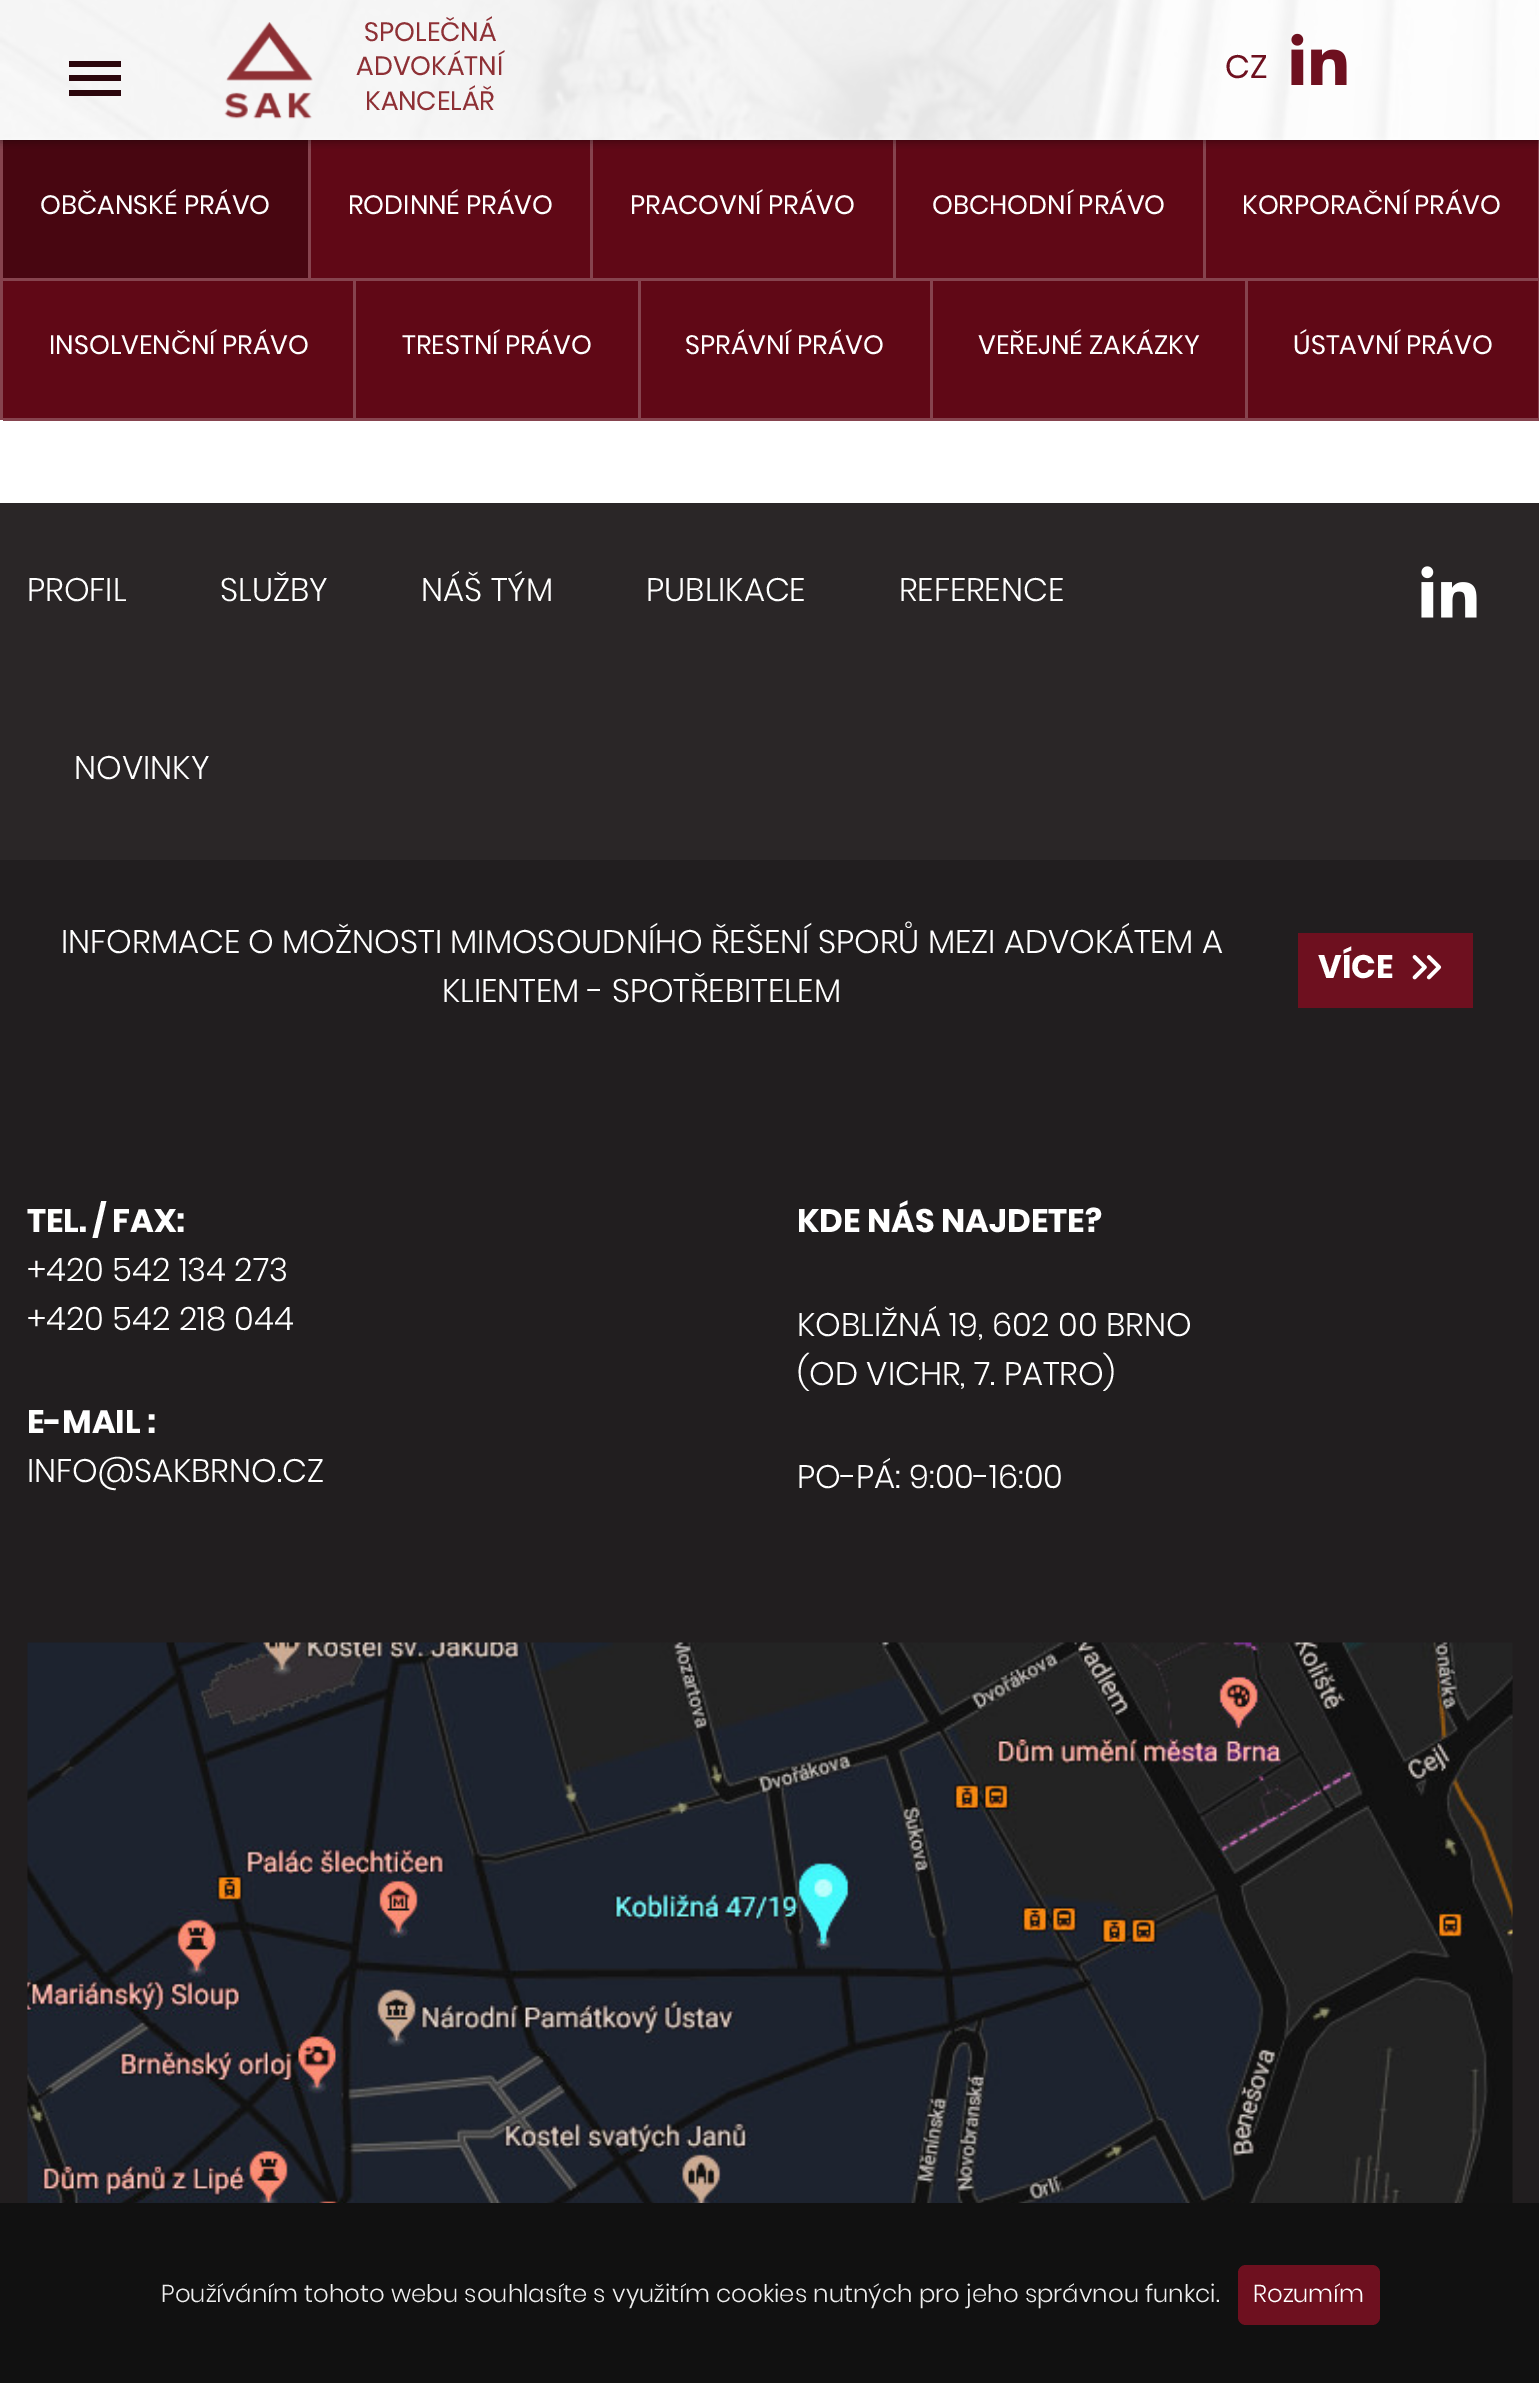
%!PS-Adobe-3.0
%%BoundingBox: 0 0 1539 2383
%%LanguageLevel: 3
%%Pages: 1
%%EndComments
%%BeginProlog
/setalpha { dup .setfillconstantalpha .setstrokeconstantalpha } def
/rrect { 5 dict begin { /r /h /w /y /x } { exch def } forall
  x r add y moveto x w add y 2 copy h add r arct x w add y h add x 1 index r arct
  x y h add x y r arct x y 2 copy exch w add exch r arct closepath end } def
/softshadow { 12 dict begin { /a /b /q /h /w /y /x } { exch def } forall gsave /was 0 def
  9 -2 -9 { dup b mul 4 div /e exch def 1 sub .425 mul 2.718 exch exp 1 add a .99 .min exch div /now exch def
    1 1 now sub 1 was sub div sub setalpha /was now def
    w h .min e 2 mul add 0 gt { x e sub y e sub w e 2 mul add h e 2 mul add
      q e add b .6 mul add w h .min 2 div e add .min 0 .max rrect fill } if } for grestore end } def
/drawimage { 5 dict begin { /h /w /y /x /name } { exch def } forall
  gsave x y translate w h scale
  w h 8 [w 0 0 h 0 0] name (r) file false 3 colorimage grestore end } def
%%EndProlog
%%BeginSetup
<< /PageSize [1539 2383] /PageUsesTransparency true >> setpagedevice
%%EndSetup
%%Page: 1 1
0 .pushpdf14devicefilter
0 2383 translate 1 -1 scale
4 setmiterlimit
1 setgray
0 0 1539 2383 rectfill
(images/1.raw) 0 0 1539 140 drawimage
0.376 0.031 0.086 setrgbcolor
3 140 1535 278 rectfill
0.525 0.263 0.306 setrgbcolor
0 140 3 280 rectfill
0.282 0.024 0.067 setrgbcolor
3 140 305 138 rectfill
0.525 0.263 0.306 setrgbcolor
308 140 3 140 rectfill
590 140 3 140 rectfill
893 140 3 140 rectfill
1203 140 3 140 rectfill
1538 140 1 140 rectfill
gsave
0 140 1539 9 rectclip
0 setgray
0 0 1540 140 0 5 0.5 softshadow
grestore
0.169 0.024 0.047 setrgbcolor
newpath 69 61 moveto 121 61 lineto 121 67 lineto 69 67 lineto closepath 69 81 moveto 69 75 lineto 121 75 lineto 121 81 lineto closepath 69 96 moveto 69 90 lineto 121 90 lineto 121 96 lineto closepath fill
(images/2.raw) 224 22 89 97 drawimage
(images/3.raw) 1291 33 56 52 drawimage
0.525 0.263 0.306 setrgbcolor
3 278 307 3 rectfill
310 278 283 3 rectfill
593 278 302 3 rectfill
895 278 310 3 rectfill
1205 278 334 3 rectfill
353 280 3 140 rectfill
3 418 352 3 rectfill
638 280 3 140 rectfill
355 418 285 3 rectfill
930 280 3 140 rectfill
640 418 293 3 rectfill
1245 280 3 140 rectfill
933 418 315 3 rectfill
1538 280 1 140 rectfill
1248 418 291 3 rectfill
0.129 0.118 0.122 setrgbcolor
0 860 1539 1343 rectfill
0.165 0.149 0.153 setrgbcolor
0 503 1539 357 rectfill
(images/4.raw) 1421 566 56 52 drawimage
0.431 0.063 0.122 setrgbcolor
1298 933 175 75 rectfill
(images/5.raw) 1412 955 30 25 drawimage
(images/6.raw) 27 1642 1486 561 drawimage
0.067 setgray
0 2203 1539 180 rectfill
0.431 0.063 0.122 setrgbcolor
1238 2265 142 60 8 rrect fill
/Poppins-Regular [26.5 0 0 -26.5 0 0] selectfont
0.557 0.188 0.208 setrgbcolor
364 41 moveto (SPOLEČNÁ) show
356 75 moveto (ADVOKÁTNÍ) show
365 110 moveto (KANCELÁŘ) show
/Poppins-Regular [32.5 0 0 -32.5 0 0] selectfont
0.431 0.063 0.122 setrgbcolor
1225 78 moveto (CZ) show
/Poppins-Regular [26.5 0 0 -26.5 0 0] selectfont
1 setgray
40 214 moveto (OBČANSKÉ PRÁVO) show
348 214 moveto (RODINNÉ PRÁVO) show
630 214 moveto (PRACOVNÍ PRÁVO) show
932 214 moveto (OBCHODNÍ PRÁVO) show
1242 214 moveto (KORPORAČNÍ PRÁVO) show
49 354 moveto (INSOLVENČNÍ PRÁVO) show
402 354 moveto (TRESTNÍ PRÁVO) show
685 354 moveto (SPRÁVNÍ PRÁVO) show
978 354 moveto (VEŘEJNÉ ZAKÁZKY) show
1293 354 moveto (ÚSTAVNÍ PRÁVO) show
/Poppins-Light [32.5 0 0 -32.5 0 0] selectfont
27 601 moveto (PROFIL) show
220 601 moveto (SLUŽBY) show
421 601 moveto (NÁŠ TÝM) show
646 601 moveto (PUBLIKACE) show
899 601 moveto (REFERENCE) show
74 779 moveto (NOVINKY) show
61 953 moveto (INFORMACE O MOŽNOSTI MIMOSOUDNÍHO ŘEŠENÍ SPORŮ MEZI ADVOKÁTEM A) show
/Poppins-Bold [32.5 0 0 -32.5 0 0] selectfont
1318 978 moveto (VÍCE) show
/Poppins-Light [32.5 0 0 -32.5 0 0] selectfont
442 1002 moveto (KLIENTEM - SPOTŘEBITELEM) show
/Poppins-Bold [32.5 0 0 -32.5 0 0] selectfont
27 1232 moveto (TEL. / FAX:) show
/Poppins-Light [32.5 0 0 -32.5 0 0] selectfont
27 1281 moveto (+420 542 134 273) show
27 1330 moveto (+420 542 218 044) show
/Poppins-Bold [32.5 0 0 -32.5 0 0] selectfont
27 1433 moveto (E-MAIL :) show
/Poppins-Light [32.5 0 0 -32.5 0 0] selectfont
27 1482 moveto (INFO@SAKBRNO.CZ) show
/Poppins-Bold [32.5 0 0 -32.5 0 0] selectfont
797 1232 moveto (KDE NÁS NAJDETE?) show
/Poppins-Light [32.5 0 0 -32.5 0 0] selectfont
797 1336 moveto (KOBLIŽNÁ 19, 602 00 BRNO) show
797 1385 moveto (\(OD VICHR, 7. PATRO\)) show
797 1488 moveto (PO-PÁ: 9:00-16:00) show
/Poppins-Light [24.4 0 0 -24.4 0 0] selectfont
0.933 setgray
161 2302 moveto (Používáním tohoto webu souhlasíte s využitím cookies nutných pro jeho správnou funkci.) show
1 setgray
1253 2302 moveto (Rozumím) show
.poppdf14devicefilter showpage
%%EOF
